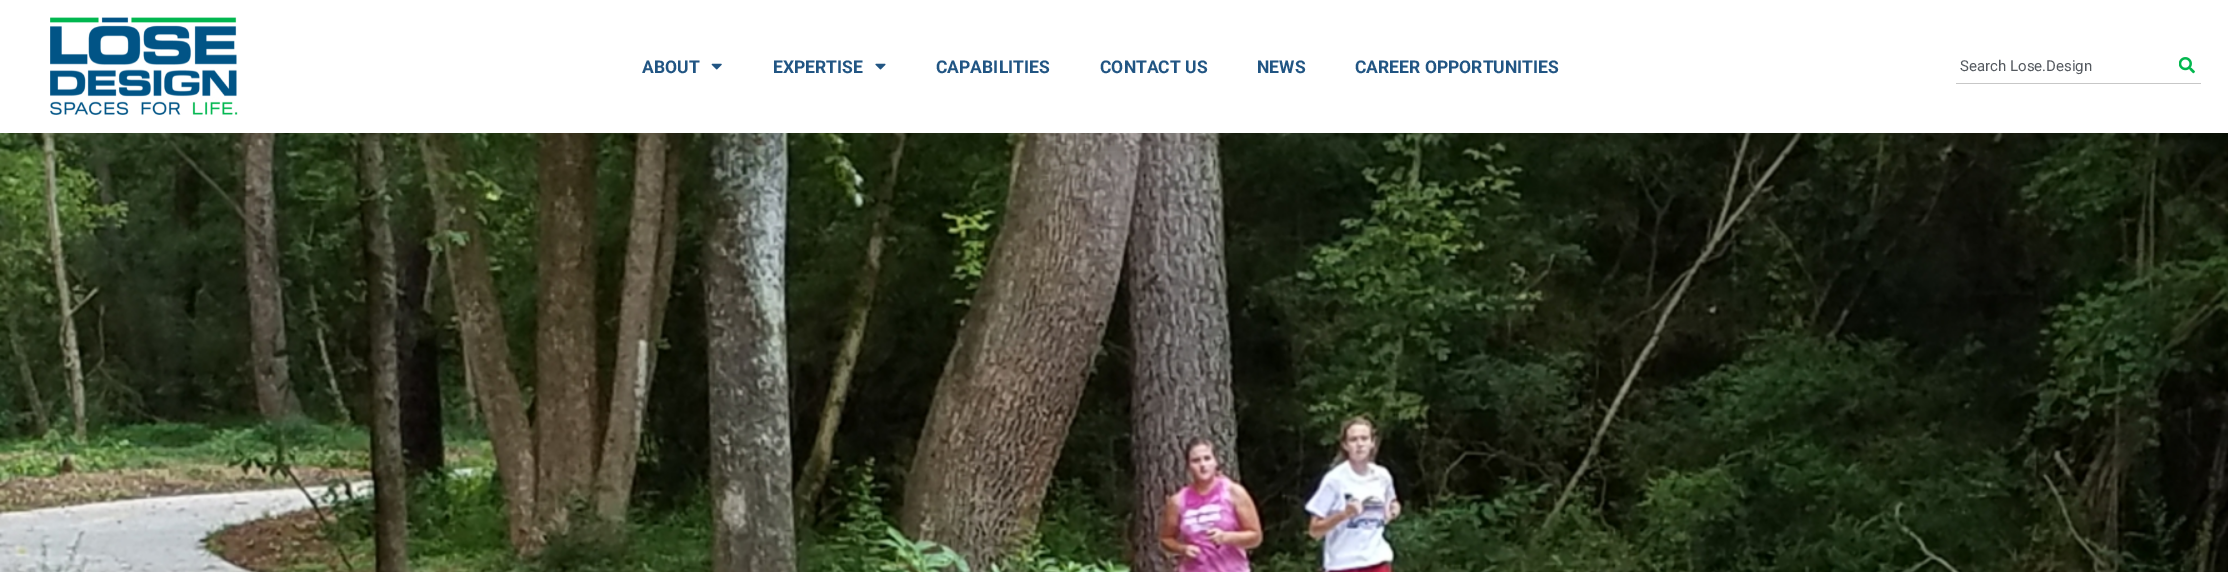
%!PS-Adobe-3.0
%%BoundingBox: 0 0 2228 572
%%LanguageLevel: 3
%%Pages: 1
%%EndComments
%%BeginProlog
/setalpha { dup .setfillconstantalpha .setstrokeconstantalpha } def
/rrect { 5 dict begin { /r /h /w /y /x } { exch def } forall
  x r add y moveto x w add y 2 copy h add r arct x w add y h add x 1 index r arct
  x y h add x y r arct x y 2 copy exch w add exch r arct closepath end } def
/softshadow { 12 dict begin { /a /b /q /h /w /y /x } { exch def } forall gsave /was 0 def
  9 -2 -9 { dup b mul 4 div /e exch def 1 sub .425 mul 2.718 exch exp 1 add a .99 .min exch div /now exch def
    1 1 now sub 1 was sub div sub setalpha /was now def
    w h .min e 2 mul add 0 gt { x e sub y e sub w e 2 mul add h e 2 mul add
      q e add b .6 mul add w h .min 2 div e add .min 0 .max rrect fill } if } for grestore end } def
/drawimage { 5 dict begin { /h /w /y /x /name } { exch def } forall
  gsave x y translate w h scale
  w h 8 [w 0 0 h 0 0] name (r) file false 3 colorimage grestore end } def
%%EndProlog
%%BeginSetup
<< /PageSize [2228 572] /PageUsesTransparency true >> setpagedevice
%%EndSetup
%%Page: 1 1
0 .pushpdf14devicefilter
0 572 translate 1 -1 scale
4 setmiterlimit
1 setgray
0 0 2228 572 rectfill
(images/5.raw) 0 133 2228 439 drawimage
0 setgray
0 0 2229 133 0 24 0.1 softshadow
1 setgray
0 0 2228 133 rectfill
(images/1.raw) 50 17 188 98 drawimage
(images/2.raw) 711 63 11 7 drawimage
(images/3.raw) 875 63 11 7 drawimage
0.78 setgray
1956 83 245 1 rectfill
(images/4.raw) 2179 57 16 17 drawimage
/Roboto-Bold [17.5 0 0 -17.5 0 0] selectfont
0.129 0.333 0.514 setrgbcolor
642 73 moveto (ABOUT) show
773 73 moveto (EXPERTISE) show
936 73 moveto (CAPABILITIES) show
1100 73 moveto (CONTACT US) show
1257 73 moveto (NEWS) show
1355 73 moveto (CAREER OPPORTUNITIES) show
/Roboto-Regular [15 0 0 -15 0 0] selectfont
0.329 0.349 0.373 setrgbcolor
1960 71 moveto (Search Lose.Design) show
.poppdf14devicefilter showpage
%%EOF
